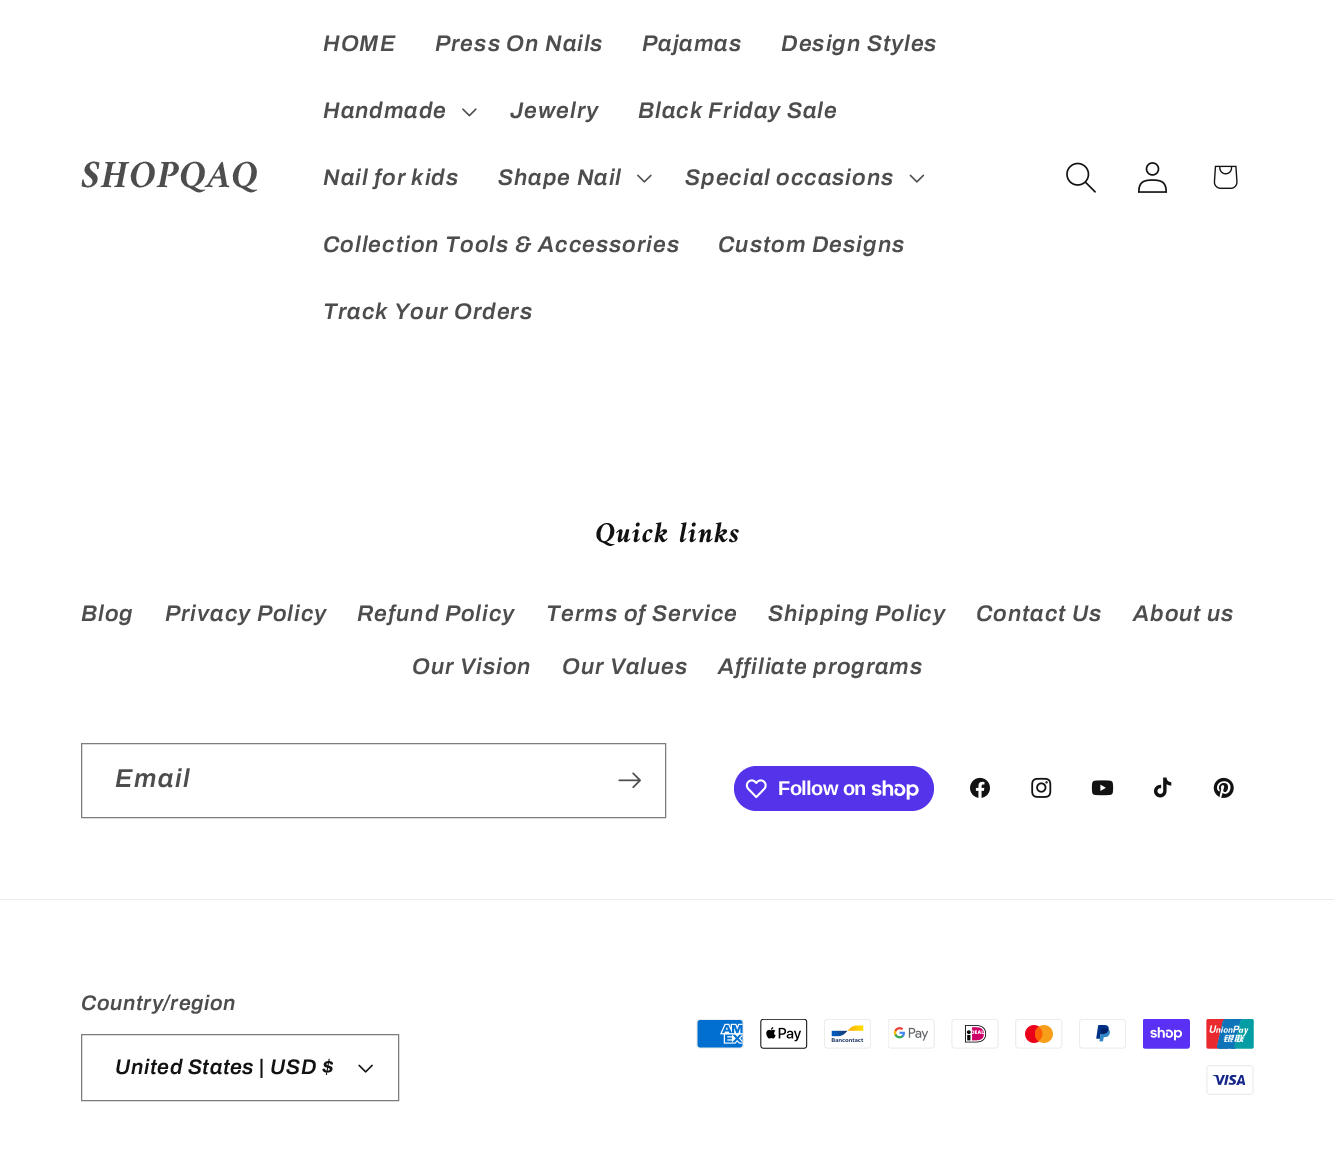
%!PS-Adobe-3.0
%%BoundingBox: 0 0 1334 1151
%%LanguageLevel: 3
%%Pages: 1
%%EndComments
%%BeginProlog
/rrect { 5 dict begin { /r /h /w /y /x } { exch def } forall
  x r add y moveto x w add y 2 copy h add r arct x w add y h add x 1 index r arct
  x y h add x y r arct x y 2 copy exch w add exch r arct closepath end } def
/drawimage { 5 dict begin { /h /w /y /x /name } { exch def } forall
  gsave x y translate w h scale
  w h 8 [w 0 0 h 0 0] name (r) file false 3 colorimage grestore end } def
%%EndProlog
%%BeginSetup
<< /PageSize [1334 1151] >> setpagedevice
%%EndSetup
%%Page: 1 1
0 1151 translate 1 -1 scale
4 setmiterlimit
1 setgray
0 0 1334 1151 rectfill
(images/1.raw) 462 108 15 9 drawimage
(images/2.raw) 637 174 15 9 drawimage
(images/3.raw) 909 174 16 9 drawimage
(images/4.raw) 1066 162 30 31 drawimage
(images/5.raw) 1137 162 31 31 drawimage
(images/6.raw) 1213 165 25 24 drawimage
0.49 setgray
81.5 743.5 584 74 rectstroke
(images/7.raw) 618 772 23 17 drawimage
0.329 0.2 0.922 setrgbcolor
734 766 200 45 22.5 rrect fill
(images/8.raw) 745 779 22 20 drawimage
(images/9.raw) 871 780 48 20 drawimage
(images/10.raw) 970 777 20 21 drawimage
(images/11.raw) 1031 777 21 21 drawimage
(images/12.raw) 1091 780 23 16 drawimage
(images/13.raw) 1153 777 19 21 drawimage
(images/14.raw) 1213 777 21 21 drawimage
0.925 setgray
0 899 1334 1 rectfill
(images/15.raw) 358 1064 15 9 drawimage
0.49 setgray
81.5 1034.5 317 66 rectstroke
(images/16.raw) 696 1019 48 30 drawimage
(images/17.raw) 760 1019 48 30 drawimage
(images/18.raw) 824 1019 47 30 drawimage
(images/19.raw) 888 1019 47 30 drawimage
(images/20.raw) 951 1019 48 30 drawimage
(images/21.raw) 1015 1019 48 30 drawimage
(images/22.raw) 1079 1019 47 30 drawimage
(images/23.raw) 1143 1019 47 30 drawimage
(images/24.raw) 1206 1019 48 30 drawimage
(images/25.raw) 1206 1065 48 30 drawimage
/Amiri-BoldItalic [39 0 0 -39 0 0] selectfont
0.302 setgray
81 187 moveto 1 0 (SHOPQAQ) ashow
/Archivo-SemiBoldItalic [22.75 0 0 -22.75 0 0] selectfont
323 51 moveto 1 0 (HOME) ashow
435 51 moveto 1 0 (Press On Nails) ashow
642 51 moveto 1 0 (Pajamas) ashow
781 51 moveto 1 0 (Design Styles) ashow
323 118 moveto 1 0 (Handmade) ashow
510 118 moveto 1 0 (Jewelry) ashow
638 118 moveto 1 0 (Black Friday Sale) ashow
323 185 moveto 1 0 (Nail for kids) ashow
498 185 moveto 1 0 (Shape Nail) ashow
685 185 moveto 1 0 (Special occasions) ashow
323 252 moveto 1 0 (Collection Tools & Accessories) ashow
718 252 moveto 1 0 (Custom Designs) ashow
323 319 moveto 1 0 (Track Your Orders) ashow
/Amiri-BoldItalic [29.25 0 0 -29.25 0 0] selectfont
0.071 setgray
595 542 moveto 1 0 (Quick links) ashow
/Archivo-SemiBoldItalic [22.75 0 0 -22.75 0 0] selectfont
0.302 setgray
81 621 moveto 1 0 (Blog) ashow
165 621 moveto 1 0 (Privacy Policy) ashow
357 621 moveto 1 0 (Refund Policy) ashow
546 621 moveto 1 0 (Terms of Service) ashow
768 621 moveto 1 0 (Shipping Policy) ashow
976 621 moveto 1 0 (Contact Us) ashow
1133 621 moveto 1 0 (About us) ashow
412 674 moveto 1 0 (Our Vision) ashow
562 674 moveto 1 0 (Our Values) ashow
718 674 moveto 1 0 (Affiliate programs) ashow
/Archivo-SemiBoldItalic [26 0 0 -26 0 0] selectfont
115 787 moveto 1.5 0 (Email) ashow
/LiberationSans-Bold [20 0 0 -20 0 0] selectfont
1 setgray
778 795 moveto -0.6 0 (Follow on) ashow
/Archivo-SemiBoldItalic [21.1 0 0 -21.1 0 0] selectfont
0.302 setgray
81 1010 moveto 0.65 0 (Country/region) ashow
0.071 setgray
115 1074 moveto 0.65 0 (United States | USD $) ashow
showpage
%%EOF
